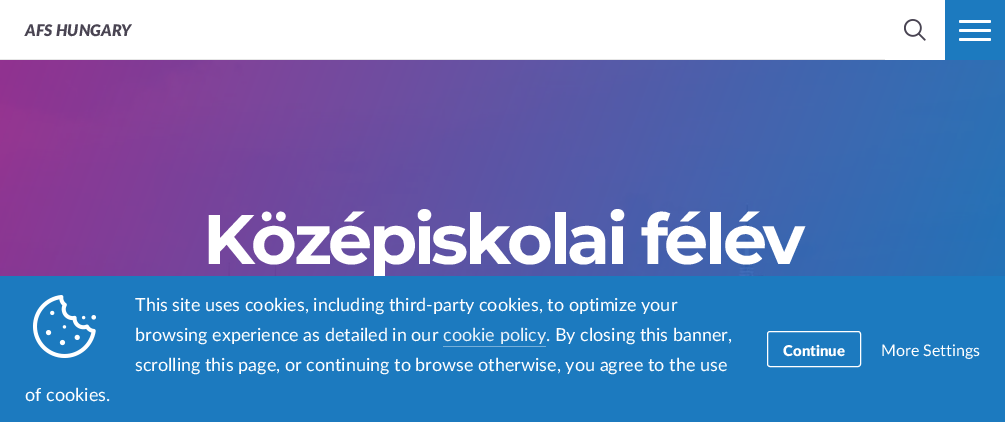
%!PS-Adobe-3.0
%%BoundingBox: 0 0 1005 422
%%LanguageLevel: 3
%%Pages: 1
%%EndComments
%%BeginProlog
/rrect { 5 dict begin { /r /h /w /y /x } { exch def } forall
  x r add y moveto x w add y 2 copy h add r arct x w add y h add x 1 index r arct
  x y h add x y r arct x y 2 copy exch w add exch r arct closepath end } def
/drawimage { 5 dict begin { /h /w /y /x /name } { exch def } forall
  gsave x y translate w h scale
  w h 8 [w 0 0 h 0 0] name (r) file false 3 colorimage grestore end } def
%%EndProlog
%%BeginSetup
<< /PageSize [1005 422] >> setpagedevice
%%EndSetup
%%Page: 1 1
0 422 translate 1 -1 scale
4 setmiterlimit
1 setgray
0 0 1005 422 rectfill
(images/1.raw) 904 19 22 22 drawimage
0.11 0.478 0.749 setrgbcolor
945 0 60 60 rectfill
1 setgray
959 29 32 3 1.5 rrect fill
959 20 32 3 1.5 rrect fill
959 38 32 3 1.5 rrect fill
0.902 setgray
0 59 885 1 rectfill
(images/2.raw) 0 60 1005 216 drawimage
/Lato-BlackItalic [16 0 0 -16 0 0] selectfont
0.286 0.267 0.322 setrgbcolor
25 36 moveto (AFS HUNGARY) show
/Montserrat-Thin [70 0 0 -70 0 0] selectfont
1 setgray
203 264 moveto -3.5 0 (Középiskolai félév) ashow
0.11 0.478 0.749 setrgbcolor
0 276 1005 146 rectfill
(images/3.raw) 33 295 63 63 drawimage
/Lato-Regular [18 0 0 -18 0 0] selectfont
1 setgray
135 311 moveto (This site uses cookies, including third-party cookies, to optimize your) show
135 341 moveto (browsing experience as detailed in our) show
0.91 0.949 0.976 setrgbcolor
443 341 moveto (cookie policy) show
0.467 0.686 0.851 setrgbcolor
443 346 103 1 rectfill
1 setgray
546 341 moveto (. By closing this banner,) show
135 371 moveto (scrolling this page, or continuing to browse otherwise, you agree to the use) show
25 401 moveto (of cookies.) show
767.5 331.5 93 35 2.5 rrect stroke
/Lato-Black [15 0 0 -15 0 0] selectfont
783 356 moveto (Continue) show
/Lato-Regular [16 0 0 -16 0 0] selectfont
881 356 moveto (More Settings) show
showpage
%%EOF
